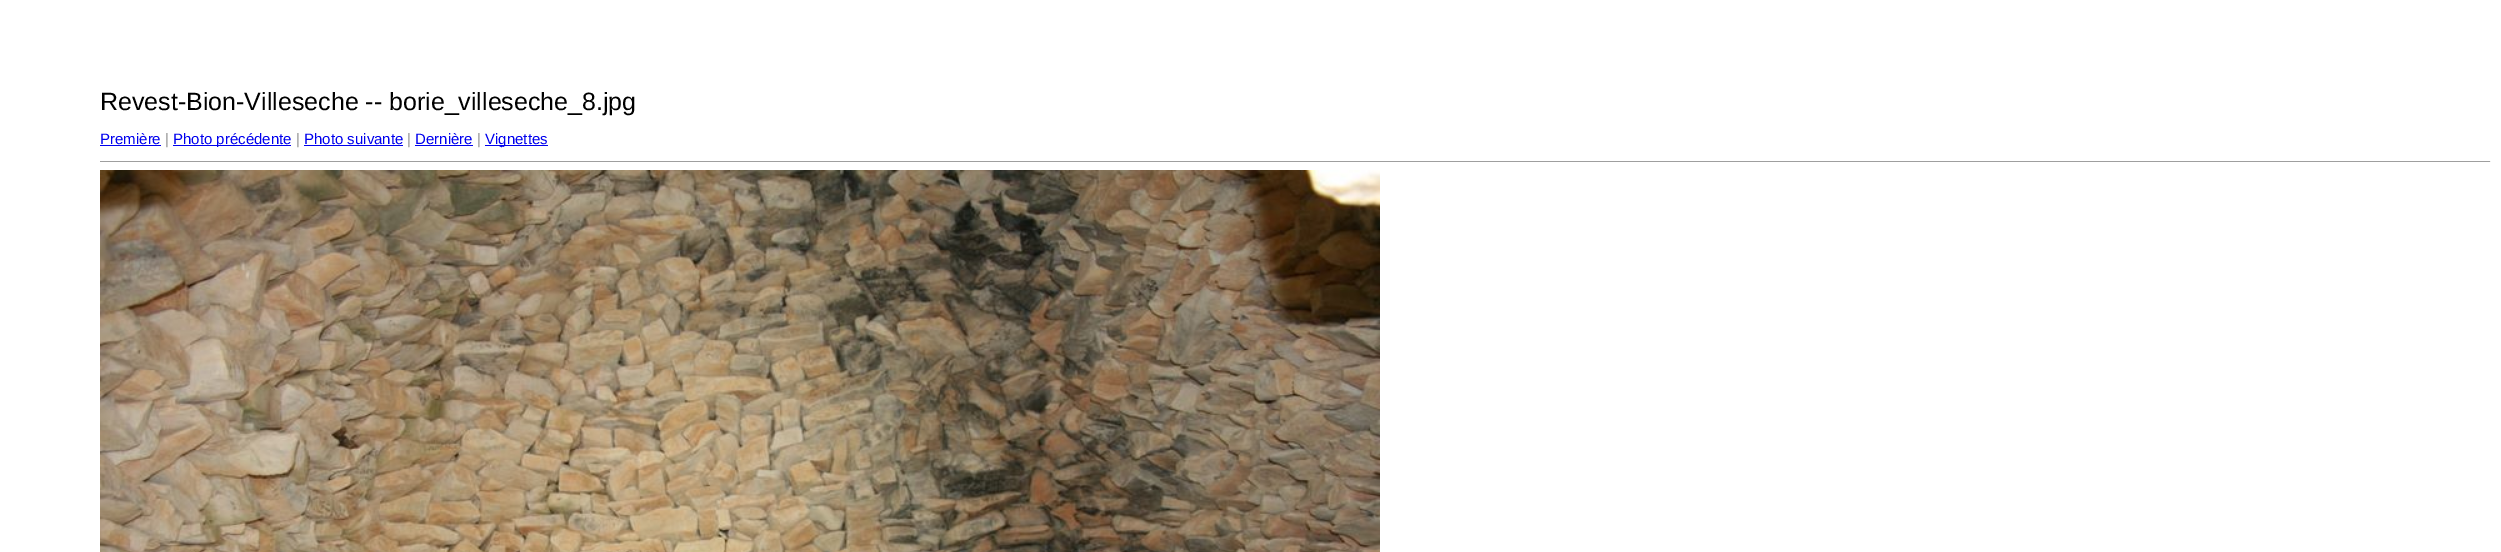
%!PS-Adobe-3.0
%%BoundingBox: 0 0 2501 552
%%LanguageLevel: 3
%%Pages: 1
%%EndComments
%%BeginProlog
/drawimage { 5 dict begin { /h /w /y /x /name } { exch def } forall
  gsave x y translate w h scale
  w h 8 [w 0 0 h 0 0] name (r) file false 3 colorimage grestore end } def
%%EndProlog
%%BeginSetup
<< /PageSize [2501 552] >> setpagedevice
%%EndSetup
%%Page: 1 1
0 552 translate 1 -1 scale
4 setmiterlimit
1 setgray
0 0 2501 552 rectfill
0 0 0.933 setrgbcolor
100 145 61 1 rectfill
173 145 118 1 rectfill
304 145 99 1 rectfill
415 145 58 1 rectfill
485 145 63 1 rectfill
0.624 setgray
100 161 2391 1 rectfill
0.933 setgray
2490 161 1 1 rectfill
(images/1.raw) 100 170 1280 382 drawimage
/LiberationSans-Regular [25 0 0 -25 0 0] selectfont
0 setgray
100 110 moveto (Revest-Bion-Villeseche -- borie_villeseche_8.jpg) show
/LiberationSans-Regular [15 0 0 -15 0 0] selectfont
0 0 0.933 setrgbcolor
100 144 moveto (Première) show
0.592 setgray
165 144 moveto (|) show
0 0 0.933 setrgbcolor
173 144 moveto (Photo précédente) show
0.592 setgray
296 144 moveto (|) show
0 0 0.933 setrgbcolor
304 144 moveto (Photo suivante) show
0.592 setgray
407 144 moveto (|) show
0 0 0.933 setrgbcolor
415 144 moveto (Dernière) show
0.592 setgray
477 144 moveto (|) show
0 0 0.933 setrgbcolor
485 144 moveto (Vignettes) show
showpage
%%EOF
